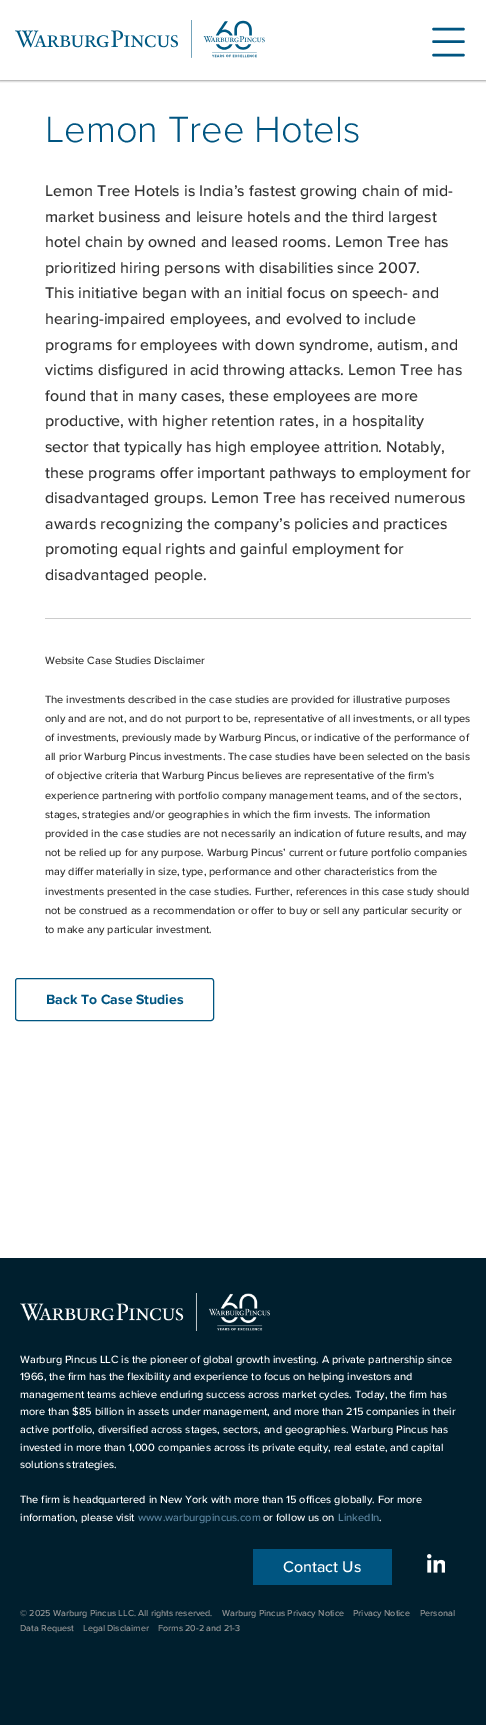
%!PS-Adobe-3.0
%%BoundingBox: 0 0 486 1725
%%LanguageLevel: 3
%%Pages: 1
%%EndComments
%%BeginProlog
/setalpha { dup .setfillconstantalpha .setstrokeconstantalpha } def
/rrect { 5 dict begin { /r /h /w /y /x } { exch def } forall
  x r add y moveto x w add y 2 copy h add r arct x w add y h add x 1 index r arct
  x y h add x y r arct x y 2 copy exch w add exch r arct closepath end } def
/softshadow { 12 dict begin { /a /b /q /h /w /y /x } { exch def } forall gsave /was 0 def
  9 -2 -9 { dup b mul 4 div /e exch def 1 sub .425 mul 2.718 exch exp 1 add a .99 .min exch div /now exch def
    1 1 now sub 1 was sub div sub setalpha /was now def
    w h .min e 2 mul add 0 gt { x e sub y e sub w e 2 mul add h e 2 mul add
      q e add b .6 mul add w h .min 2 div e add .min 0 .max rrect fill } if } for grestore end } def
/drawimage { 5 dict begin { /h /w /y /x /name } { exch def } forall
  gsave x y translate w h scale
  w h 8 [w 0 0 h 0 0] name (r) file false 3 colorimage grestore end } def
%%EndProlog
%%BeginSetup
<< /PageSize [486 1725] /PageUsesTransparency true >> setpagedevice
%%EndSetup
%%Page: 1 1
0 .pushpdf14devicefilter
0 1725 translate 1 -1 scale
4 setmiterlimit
1 setgray
0 0 486 1725 rectfill
gsave
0 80 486 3 rectclip
0 setgray
0 0 486 80 0 1.5 0.65 softshadow
grestore
(images/1.raw) 15 20 250 38 drawimage
0 0.333 0.506 setrgbcolor
2.5 setlinewidth
1 setlinecap
newpath 433.5 29 moveto 463.5 29 lineto 433.5 41.5 moveto 463.5 41.5 lineto 433.5 55 moveto 463.5 55 lineto stroke
0.8 setgray
45 618 426 1 rectfill
0 0.333 0.506 setrgbcolor
1 setlinewidth
0 setlinecap
15.5 978.5 198 42 2.5 rrect stroke
0 0.122 0.18 setrgbcolor
0 1258 486 467 rectfill
(images/2.raw) 20 1293 250 38 drawimage
0 0.333 0.506 setrgbcolor
253 1549 139 36 rectfill
(images/3.raw) 427 1554 18 19 drawimage
/ProximaNova-Light [38 0 0 -38 0 0] selectfont
45 142 moveto (Lemon Tree Hotels) show
/ProximaNova-Medium [16 0 0 -16 0 0] selectfont
0.2 setgray
45 196 moveto (Lemon Tree Hotels is India’s fastest growing chain of mid-) show
45 222 moveto (market business and leisure hotels and the third largest) show
45 247 moveto (hotel chain by owned and leased rooms. Lemon Tree has) show
45 273 moveto (prioritized hiring persons with disabilities since 2007.) show
45 298 moveto (This initiative began with an initial focus on speech- and) show
45 324 moveto (hearing-impaired employees, and evolved to include) show
45 350 moveto (programs for employees with down syndrome, autism, and) show
45 375 moveto (victims disfigured in acid throwing attacks. Lemon Tree has) show
45 401 moveto (found that in many cases, these employees are more) show
45 426 moveto (productive, with higher retention rates, in a hospitality) show
45 452 moveto (sector that typically has high employee attrition. Notably,) show
45 478 moveto (these programs offer important pathways to employment for) show
45 503 moveto (disadvantaged groups. Lemon Tree has received numerous) show
45 529 moveto (awards recognizing the company’s policies and practices) show
45 554 moveto (promoting equal rights and gainful employment for) show
45 580 moveto (disadvantaged people.) show
/ProximaNova-Medium [11 0 0 -11 0 0] selectfont
45 664 moveto (Website Case Studies Disclaimer) show
45 703 moveto (The investments described in the case studies are provided for illustrative purposes) show
45 722 moveto (only and are not, and do not purport to be, representative of all investments, or all types) show
45 741 moveto (of investments, previously made by Warburg Pincus, or indicative of the performance of) show
45 760 moveto (all prior Warburg Pincus investments. The case studies have been selected on the basis) show
45 779 moveto (of objective criteria that Warburg Pincus believes are representative of the firm’s) show
45 799 moveto (experience partnering with portfolio company management teams, and of the sectors,) show
45 818 moveto (stages, strategies and/or geographies in which the firm invests. The information) show
45 837 moveto (provided in the case studies are not necessarily an indication of future results, and may) show
45 856 moveto (not be relied up for any purpose. Warburg Pincus’ current or future portfolio companies) show
45 875 moveto (may differ materially in size, type, performance and other characteristics from the) show
45 895 moveto (investments presented in the case studies. Further, references in this case study should) show
45 914 moveto (not be construed as a recommendation or offer to buy or sell any particular security or) show
45 933 moveto (to make any particular investment.) show
/ProximaNova-Bold [14 0 0 -14 0 0] selectfont
0 0.333 0.506 setrgbcolor
46 1004 moveto (Back To Case Studies) show
/ProximaNova-Medium [11 0 0 -11 0 0] selectfont
1 setgray
20 1363 moveto (Warburg Pincus LLC is the pioneer of global growth investing. A private partnership since) show
20 1380 moveto (1966, the firm has the flexibility and experience to focus on helping investors and) show
20 1398 moveto (management teams achieve enduring success across market cycles. Today, the firm has) show
20 1415 moveto (more than $85 billion in assets under management, and more than 215 companies in their) show
20 1433 moveto (active portfolio, diversified across stages, sectors, and geographies. Warburg Pincus has) show
20 1451 moveto (invested in more than 1,000 companies across its private equity, real estate, and capital) show
20 1468 moveto (solutions strategies.) show
20 1503 moveto (The firm is headquartered in New York with more than 15 offices globally. For more) show
20 1521 moveto (information, please visit) show
0.365 0.525 0.631 setrgbcolor
138 1521 moveto (www.warburgpincus.com) show
1 setgray
263 1521 moveto (or follow us on) show
0.365 0.525 0.631 setrgbcolor
338 1521 moveto (LinkedIn) show
1 setgray
379 1521 moveto (.) show
/ProximaNova-Medium [16 0 0 -16 0 0] selectfont
283 1572 moveto (Contact Us) show
/ProximaNova-Medium [9 0 0 -9 0 0] selectfont
0.6 setgray
20 1616 moveto (© 2025 Warburg Pincus LLC. All rights reserved.) show
222 1616 moveto (Warburg Pincus Privacy Notice) show
353 1616 moveto (Privacy Notice) show
420 1616 moveto (Personal) show
20 1631 moveto (Data Request) show
83 1631 moveto (Legal Disclaimer) show
158 1631 moveto (Forms 20-2 and 21-3) show
.poppdf14devicefilter showpage
%%EOF
